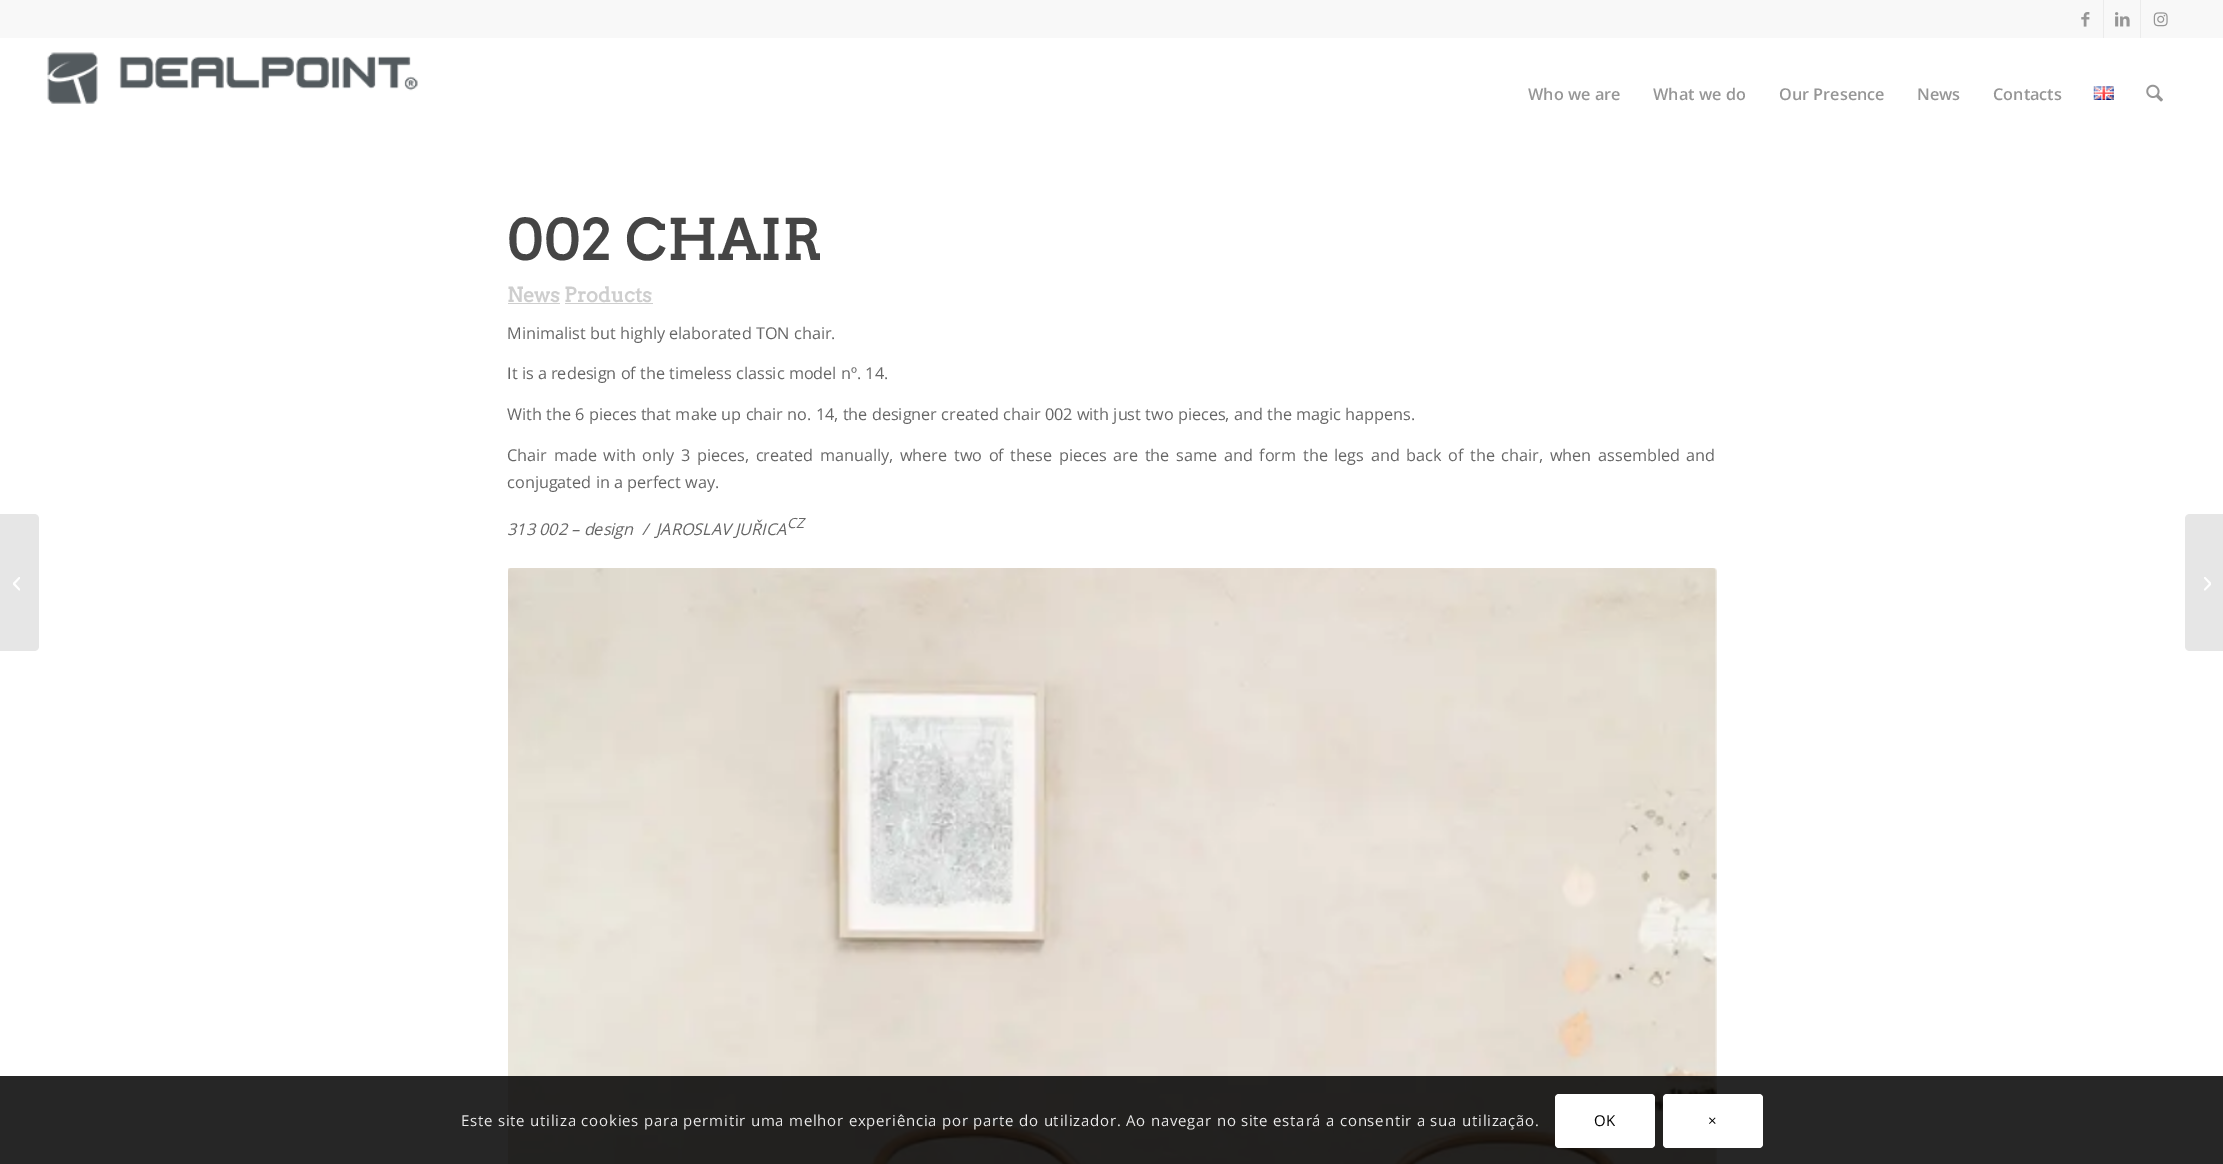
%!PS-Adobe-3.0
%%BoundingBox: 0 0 2223 1164
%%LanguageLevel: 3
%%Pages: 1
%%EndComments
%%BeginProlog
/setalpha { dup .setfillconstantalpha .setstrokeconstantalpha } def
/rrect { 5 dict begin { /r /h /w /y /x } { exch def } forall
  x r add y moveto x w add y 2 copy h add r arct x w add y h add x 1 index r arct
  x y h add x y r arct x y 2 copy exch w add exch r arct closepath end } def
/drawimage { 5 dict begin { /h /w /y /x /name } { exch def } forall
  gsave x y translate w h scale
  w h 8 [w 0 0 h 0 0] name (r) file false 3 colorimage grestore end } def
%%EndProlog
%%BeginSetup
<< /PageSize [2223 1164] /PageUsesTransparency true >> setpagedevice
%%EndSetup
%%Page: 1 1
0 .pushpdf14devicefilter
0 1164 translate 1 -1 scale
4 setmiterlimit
1 setgray
0 0 2223 1164 rectfill
0.973 setgray
0 0 2223 38 rectfill
0.922 setgray
2103 0 1 38 rectfill
(images/1.raw) 2081 12 9 15 drawimage
2140 0 1 38 rectfill
(images/2.raw) 2115 12 15 15 drawimage
(images/3.raw) 2153 12 15 15 drawimage
(images/4.raw) 47 52 371 52 drawimage
(images/5.raw) 2093 86 21 14 drawimage
(images/6.raw) 2146 84 17 18 drawimage
0.808 setgray
508 303 52 1 rectfill
565 303 88 1 rectfill
(images/7.raw) 508 568 1209 596 drawimage
0.902 setgray
newpath 0 514 moveto 34 514 lineto 37 514 39 516 39 519 curveto 39 646 lineto 39 649 37 651 34 651 curveto 0 651 lineto closepath fill
(images/8.raw) 13 577 7 14 drawimage
newpath 2190 514 moveto 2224 514 lineto 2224 651 lineto 2190 651 lineto 2187 651 2185 649 2185 646 curveto 2185 519 lineto 2185 516 2187 514 2190 514 curveto closepath fill
(images/9.raw) 2204 577 7 14 drawimage
0.85 setalpha
0 setgray
0 1076 2223 88 rectfill
1 setalpha
1 setgray
1555 1094 100 54 4 rrect fill
1663 1094 100 54 4 rrect fill
/OpenSans-SemiBold [16.25 0 0 -16.25 0 0] selectfont
0.588 setgray
1528 100 moveto (Who we are) show
1653 100 moveto (What we do) show
1779 100 moveto (Our Presence) show
1917 100 moveto (News) show
1993 100 moveto (Contacts) show
/Arvo-Bold [55 0 0 -55 0 0] selectfont
0.271 setgray
507 260 moveto 1.25 0 (002 CHAIR) ashow
/Arvo-Bold [20 0 0 -20 0 0] selectfont
0.808 setgray
507 302 moveto (News Products) show
/OpenSans-Regular [16.25 0 0 -16.25 0 0] selectfont
0.4 setgray
507 339 moveto (Minimalist but highly elaborated TON chair.) show
507 379 moveto (It is a redesign of the timeless classic model nº. 14.) show
507 420 moveto (With the 6 pieces that make up chair no. 14, the designer created chair 002 with just two pieces, and the magic happens.) show
507 461 moveto 2.4 0 32 (Chair made with only 3 pieces, created manually, where two of these pieces are the same and form the legs and back of the chair, when assembled and) widthshow
507 488 moveto (conjugated in a perfect way.) show
/OpenSans-Italic [16.25 0 0 -16.25 0 0] selectfont
507 535 moveto (313 002 – design  /  JAROSLAV JUŘICA) show
/OpenSans-Italic [14 0 0 -14 0 0] selectfont
787 528 moveto (CZ) show
/OpenSans-Regular [15 0 0 -15 0 0] selectfont
0.914 setgray
461 1126 moveto 0.75 0 (Este site utiliza cookies para permitir uma melhor experiência por parte do utilizador. Ao navegar no site estará a consentir a sua utilização.) ashow
0 setgray
1594 1126 moveto 0.75 0 (OK) ashow
1708 1126 moveto 0.75 0 (×) ashow
.poppdf14devicefilter showpage
%%EOF
